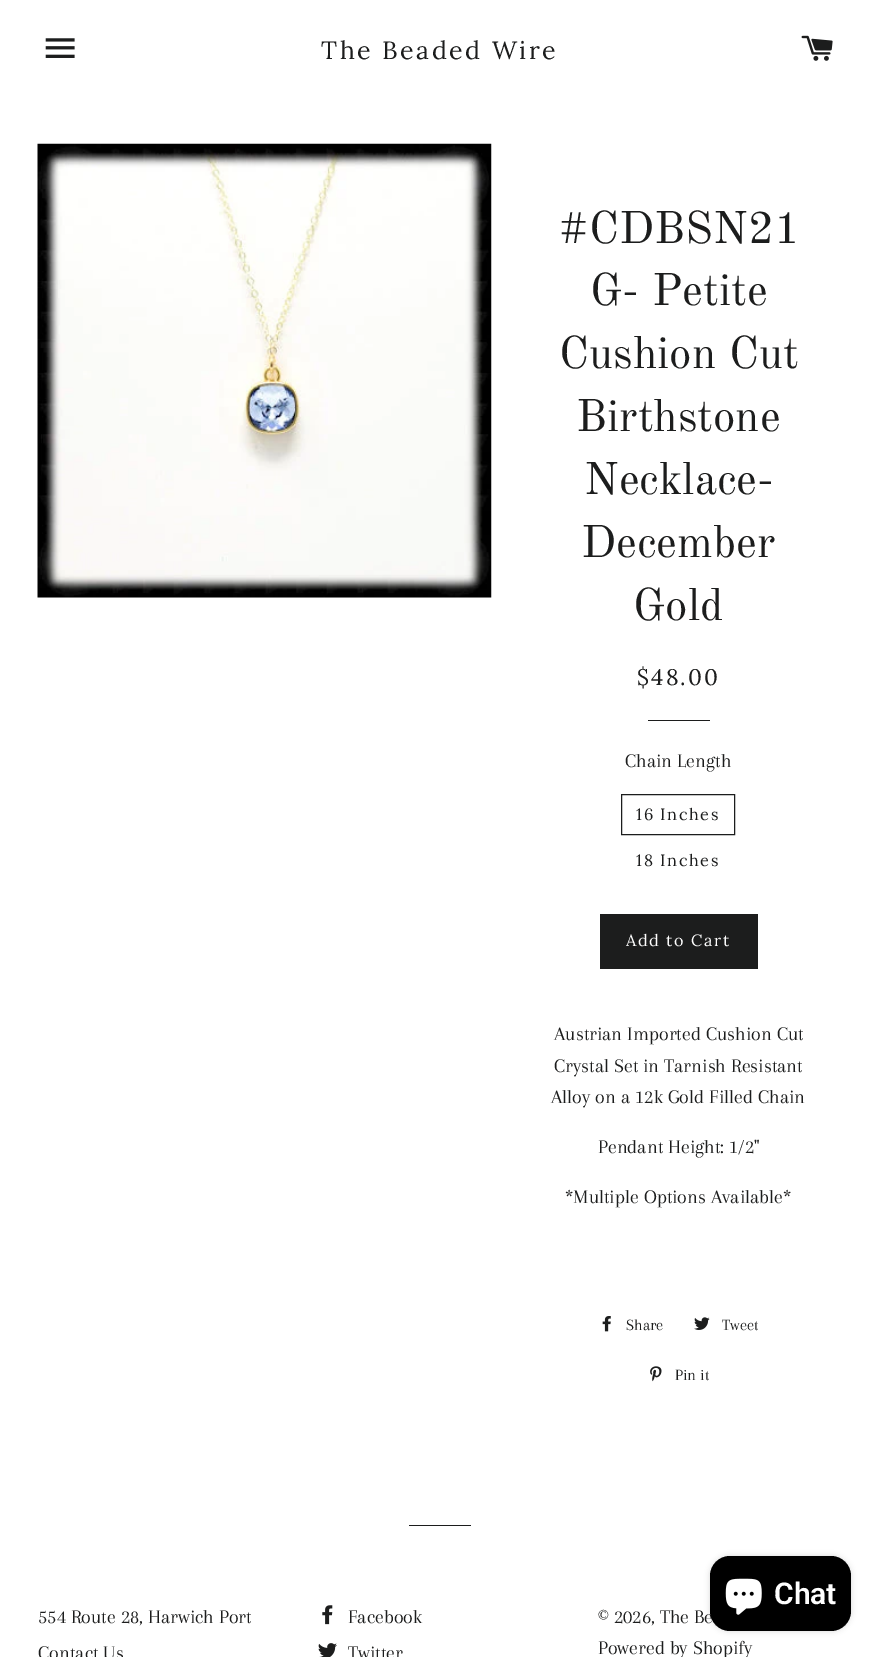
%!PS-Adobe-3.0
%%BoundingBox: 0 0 878 1657
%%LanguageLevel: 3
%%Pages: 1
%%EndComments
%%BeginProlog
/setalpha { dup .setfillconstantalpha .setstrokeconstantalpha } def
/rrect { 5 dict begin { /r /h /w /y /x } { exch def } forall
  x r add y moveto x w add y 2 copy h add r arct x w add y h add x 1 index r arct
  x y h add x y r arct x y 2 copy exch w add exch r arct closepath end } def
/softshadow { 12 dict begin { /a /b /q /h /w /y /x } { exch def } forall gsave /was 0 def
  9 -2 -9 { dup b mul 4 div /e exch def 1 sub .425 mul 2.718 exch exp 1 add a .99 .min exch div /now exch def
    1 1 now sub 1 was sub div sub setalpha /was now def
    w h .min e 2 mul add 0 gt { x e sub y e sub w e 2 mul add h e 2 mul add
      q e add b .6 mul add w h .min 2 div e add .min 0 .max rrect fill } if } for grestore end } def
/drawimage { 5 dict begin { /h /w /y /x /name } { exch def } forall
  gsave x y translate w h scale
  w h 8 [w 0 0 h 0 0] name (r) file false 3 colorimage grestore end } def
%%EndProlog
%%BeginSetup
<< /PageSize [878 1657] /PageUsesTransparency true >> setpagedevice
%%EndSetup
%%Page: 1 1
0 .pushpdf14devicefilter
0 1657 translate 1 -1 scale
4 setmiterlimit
1 setgray
0 0 878 1657 rectfill
(images/1.raw) 45 38 30 20 drawimage
(images/2.raw) 801 35 32 26 drawimage
0.969 setgray
38 597 453 1 rectfill
(images/3.raw) 37 143 455 455 drawimage
0.11 0.114 0.114 setrgbcolor
648 720 62 1 rectfill
621.5 794.5 113 40 rectstroke
600 914 158 55 rectfill
(images/4.raw) 602 1316 9 16 drawimage
(images/5.raw) 694 1317 16 13 drawimage
(images/6.raw) 650 1366 12 16 drawimage
409 1525 62 1 rectfill
(images/7.raw) 322 1605 11 20 drawimage
(images/8.raw) 318 1643 19 14 drawimage
0 setgray
710 1556 141 75 20 3 0.15 softshadow
/Lora-Regular [25 0 0 -25 0 0] selectfont
0.11 0.114 0.114 setrgbcolor
321 59 moveto 2.5 0 (The Beaded Wire) ashow
/OldStandardTT-Regular [45 0 0 -45 0 0] selectfont
558 243 moveto (#CDBSN21) show
590 305 moveto (G- Petite) show
559 368 moveto (Cushion Cut) show
576 431 moveto (Birthstone) show
584 494 moveto (Necklace-) show
581 557 moveto (December) show
633 620 moveto (Gold) show
/Lora-Regular [22.5 0 0 -22.5 0 0] selectfont
637 685 moveto 2.25 0 ($48.00) ashow
/Arapey-Regular [20 0 0 -20 0 0] selectfont
625 767 moveto (Chain Length) show
/Lora-Regular [16.25 0 0 -16.25 0 0] selectfont
636 820 moveto 1.6 0 (16 Inches) ashow
636 866 moveto 1.6 0 (18 Inches) ashow
1 setgray
626 946 moveto 1.6 0 (Add to Cart) ashow
/Arapey-Regular [20 0 0 -20 0 0] selectfont
0.11 0.114 0.114 setrgbcolor
554 1040 moveto (Austrian Imported Cushion Cut) show
554 1072 moveto (Crystal Set in Tarnish Resistant) show
551 1103 moveto (Alloy on a 12k Gold Filled Chain) show
598 1153 moveto (Pendant Height: 1/2") show
565 1203 moveto (*Multiple Options Available*) show
/Arapey-Regular [16.25 0 0 -16.25 0 0] selectfont
626 1330 moveto (Share) show
722 1330 moveto (Tweet) show
675 1380 moveto (Pin it) show
/Arapey-Regular [20 0 0 -20 0 0] selectfont
38 1623 moveto (554 Route 28, Harwich Port) show
38 1659 moveto (Contact Us) show
348 1623 moveto (Facebook) show
348 1659 moveto (Twitter) show
598 1623 moveto (© 2026, The Be) show
598 1654 moveto (Powered by Shopify) show
0 setgray
710 1556 141 75 20 rrect fill
(images/9.raw) 725 1578 37 37 drawimage
/Roboto-SemiBold [30 0 0 -30 0 0] selectfont
1 setgray
774 1604 moveto (Chat) show
.poppdf14devicefilter showpage
%%EOF
